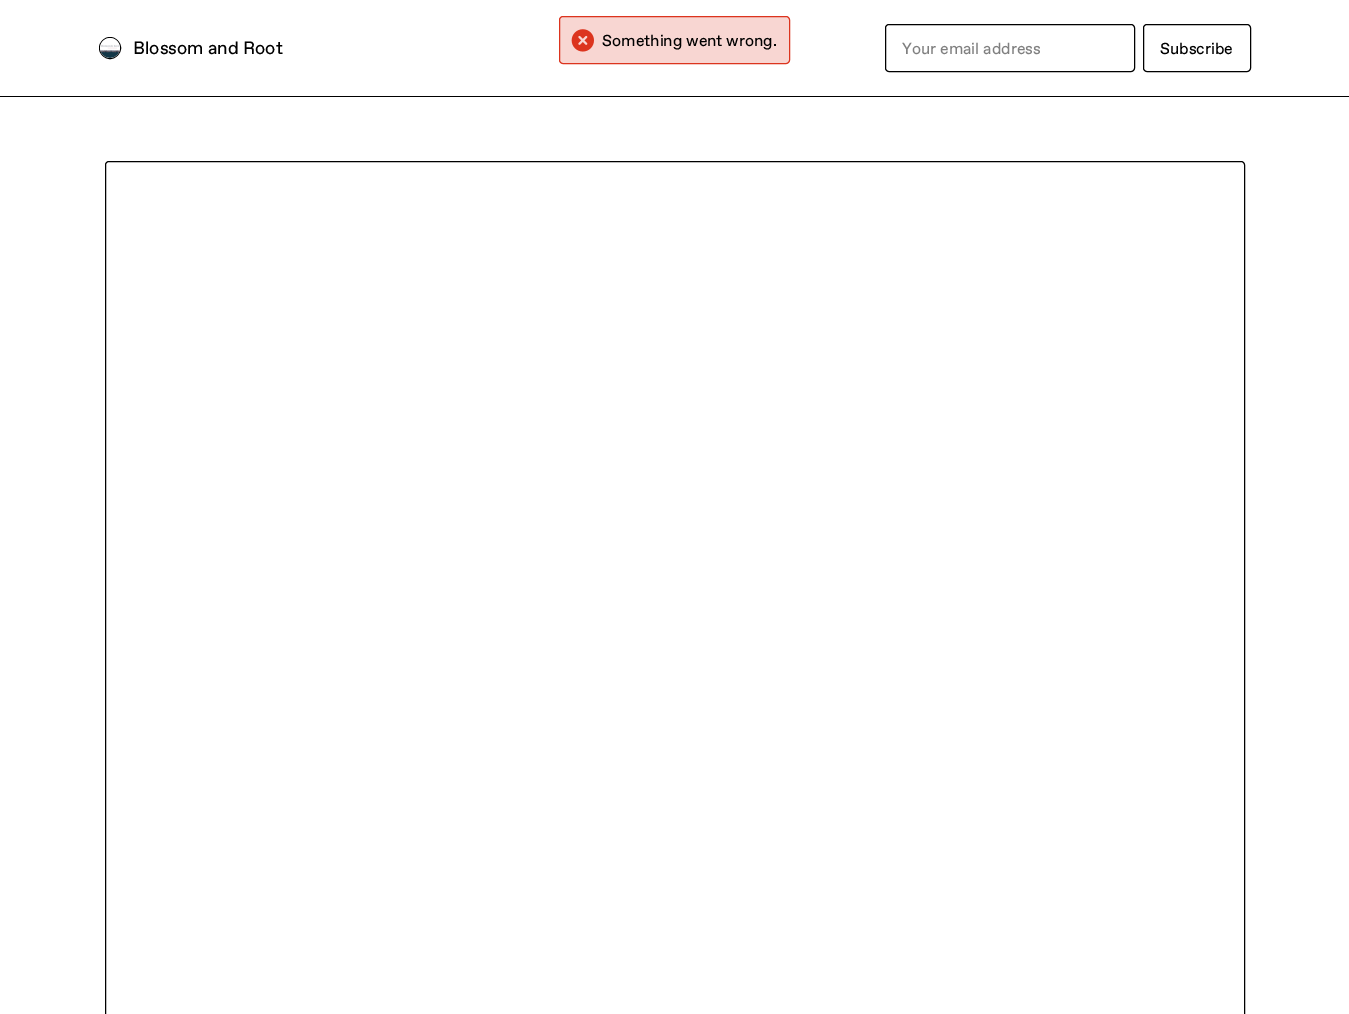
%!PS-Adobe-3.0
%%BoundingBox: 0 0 1349 1014
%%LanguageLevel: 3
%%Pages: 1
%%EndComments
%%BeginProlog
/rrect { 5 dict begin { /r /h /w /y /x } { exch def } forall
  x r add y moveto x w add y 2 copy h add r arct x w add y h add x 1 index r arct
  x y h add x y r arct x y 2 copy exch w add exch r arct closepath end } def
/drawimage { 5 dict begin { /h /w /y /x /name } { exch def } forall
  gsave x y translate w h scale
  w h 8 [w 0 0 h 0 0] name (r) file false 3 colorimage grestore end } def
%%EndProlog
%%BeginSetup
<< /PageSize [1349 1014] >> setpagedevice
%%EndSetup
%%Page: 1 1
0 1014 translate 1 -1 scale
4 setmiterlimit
1 setgray
0 0 1349 1014 rectfill
0.973 0.839 0.824 setrgbcolor
559.5 16.5 230 47 3.5 rrect gsave fill grestore
0.863 0.204 0.118 setrgbcolor
stroke
(images/1.raw) 571 29 23 23 drawimage
0 setgray
0 96 1349 1 rectfill
newpath 110 48 10.5 0 360 arc closepath stroke
(images/2.raw) 100 38 20 20 drawimage
885.5 24.5 249 47 3.5 rrect stroke
1143.5 24.5 107 47 3.5 rrect stroke
105.5 161.5 1139 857 3.5 rrect stroke
/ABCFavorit-Regular [16 0 0 -16 0 0] selectfont
602 46 moveto (Something went wrong.) show
/ABCFavorit-Regular [18 0 0 -18 0 0] selectfont
133 54 moveto (Blossom and Root) show
/ABCFavorit-Regular [16 0 0 -16 0 0] selectfont
0.502 setgray
902 54 moveto (Your email address) show
0 setgray
1160 54 moveto (Subscribe) show
showpage
%%EOF
